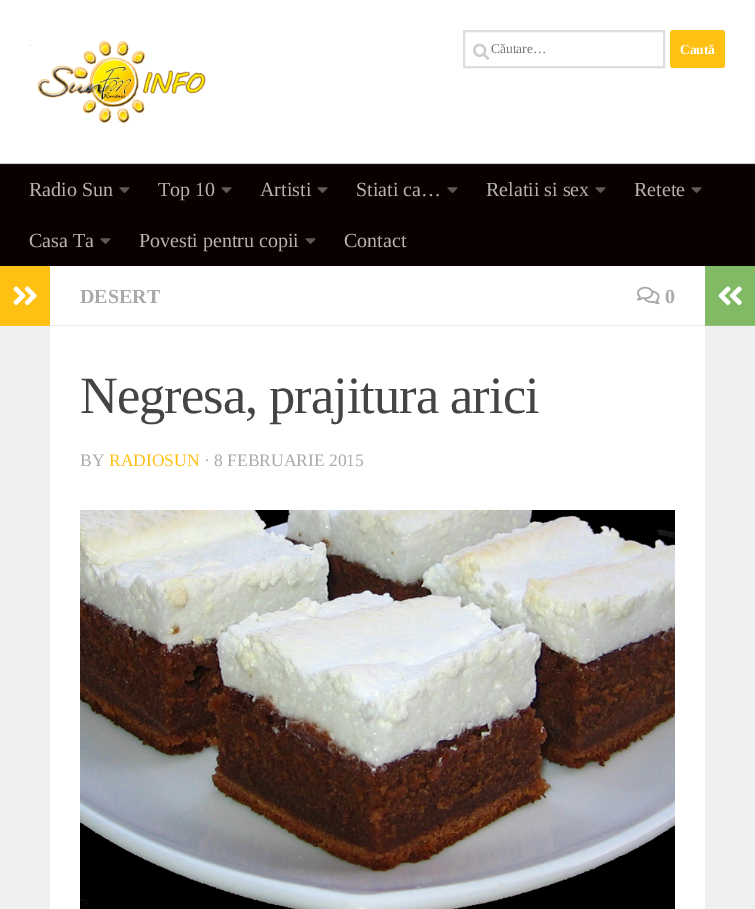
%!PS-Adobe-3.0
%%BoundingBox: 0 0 755 909
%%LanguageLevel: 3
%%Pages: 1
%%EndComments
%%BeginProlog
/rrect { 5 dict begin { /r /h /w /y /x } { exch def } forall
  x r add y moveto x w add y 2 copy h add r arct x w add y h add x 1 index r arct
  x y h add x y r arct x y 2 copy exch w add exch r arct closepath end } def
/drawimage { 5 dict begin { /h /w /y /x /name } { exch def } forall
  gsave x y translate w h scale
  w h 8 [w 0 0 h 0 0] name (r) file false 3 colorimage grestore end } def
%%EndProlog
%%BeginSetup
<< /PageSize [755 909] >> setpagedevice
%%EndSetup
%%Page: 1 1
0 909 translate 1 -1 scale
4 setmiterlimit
1 setgray
0 0 755 909 rectfill
(images/1.raw) 30 40 176 84 drawimage
0.867 setgray
2 setlinewidth
464 31 200 36 rectstroke
(images/2.raw) 473 43 17 17 drawimage
1 0.753 0.078 setrgbcolor
670 30 55 38 3 rrect fill
0.8 setgray
0 163 755 1 rectfill
0.039 0 0 setrgbcolor
1 165 753 101 rectfill
0.031 0 0 setrgbcolor
754 164 1 102 rectfill
0 164 1 102 rectfill
0.086 0.051 0.051 setrgbcolor
0 164 755 1 rectfill
(images/3.raw) 119 187 11 6 drawimage
(images/3.raw) 221 187 11 6 drawimage
(images/3.raw) 317 187 11 6 drawimage
(images/3.raw) 447 187 11 6 drawimage
(images/3.raw) 595 187 11 6 drawimage
(images/3.raw) 691 187 11 6 drawimage
(images/3.raw) 100 238 11 6 drawimage
(images/3.raw) 305 238 11 6 drawimage
0.941 setgray
0 326 50 583 rectfill
1 0.753 0.078 setrgbcolor
0 266 50 59 rectfill
1 0.776 0.173 setrgbcolor
0 325 50 1 rectfill
(images/4.raw) 13 286 24 20 drawimage
0.933 setgray
50 325 655 1 rectfill
(images/5.raw) 637 286 23 19 drawimage
(images/6.raw) 80 510 595 399 drawimage
0.51 0.725 0.396 setrgbcolor
705 266 50 59 rectfill
0.561 0.753 0.455 setrgbcolor
705 325 50 1 rectfill
(images/7.raw) 718 286 24 20 drawimage
0.941 setgray
705 326 50 583 rectfill
/LiberationSerif-Regular [13.5 0 0 -13.5 0 0] selectfont
0.459 setgray
491 53 moveto (Căutare…) show
/LiberationSerif-Bold [13.5 0 0 -13.5 0 0] selectfont
1 setgray
680 54 moveto (Caută) show
/LiberationSerif-Regular [20 0 0 -20 0 0] selectfont
0.714 0.702 0.702 setrgbcolor
29 196 moveto (Radio Sun) show
158 196 moveto (Top 10) show
260 196 moveto (Artisti) show
356 196 moveto (Stiati ca…) show
486 196 moveto (Relatii si sex) show
634 196 moveto (Retete) show
29 247 moveto (Casa Ta) show
139 247 moveto (Povesti pentru copii) show
344 247 moveto (Contact) show
/LiberationSerif-Bold [20 0 0 -20 0 0] selectfont
0.667 setgray
80 303 moveto (DESERT) show
665 303 moveto (0) show
/LiberationSerif-Regular [52.5 0 0 -52.5 0 0] selectfont
0.267 setgray
80 413 moveto -1 0 (Negresa, prajitura arici) ashow
/LiberationSerif-Regular [17.5 0 0 -17.5 0 0] selectfont
0.667 setgray
80 466 moveto (BY) show
1 0.753 0.078 setrgbcolor
109 466 moveto (RADIOSUN) show
0.667 setgray
204 466 moveto (· 8 FEBRUARIE 2015) show
showpage
%%EOF
